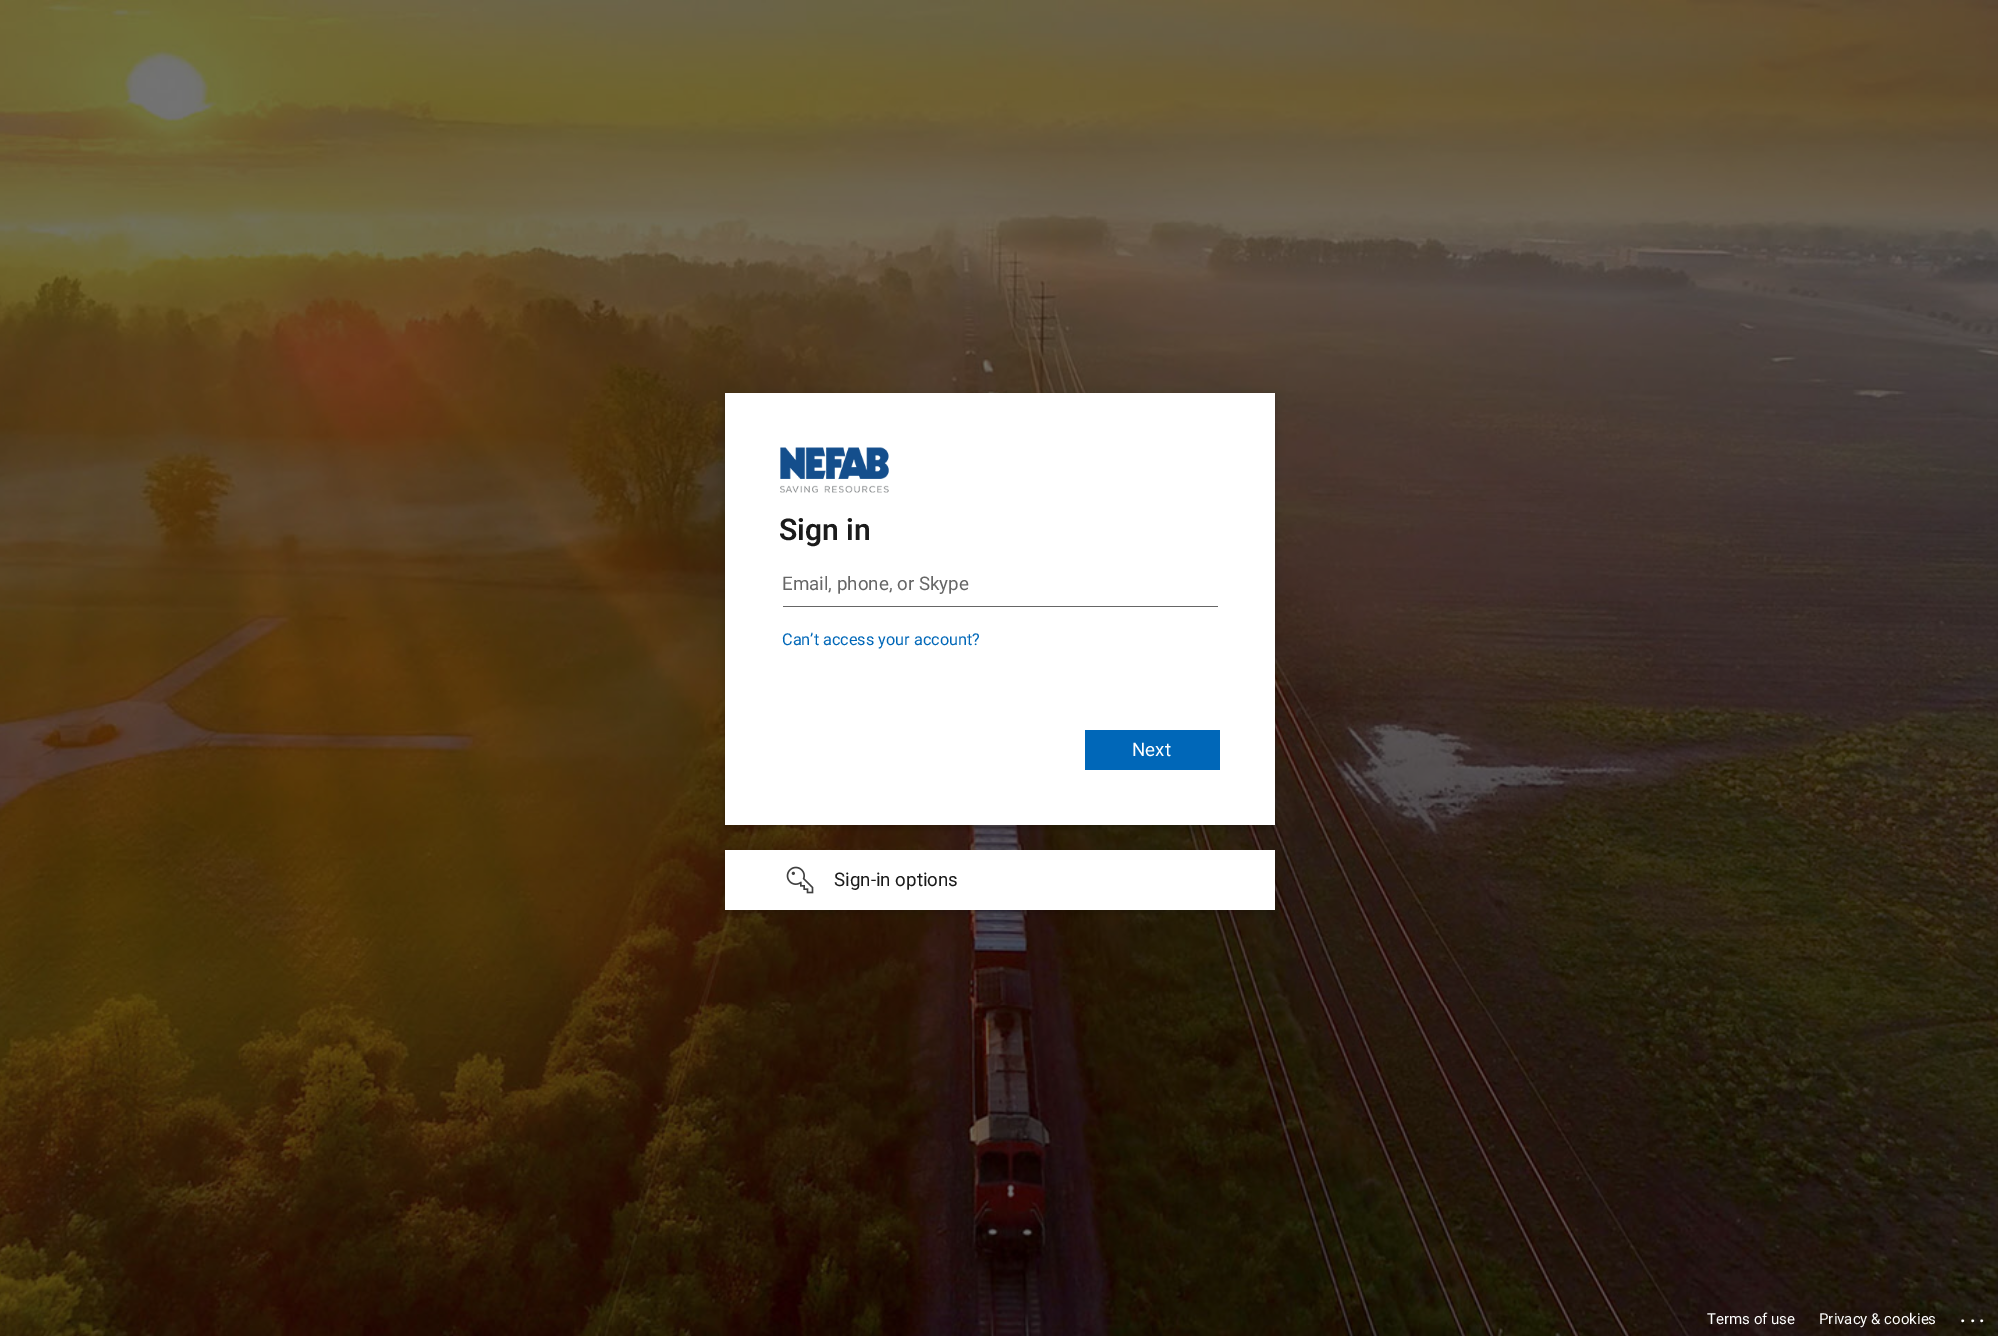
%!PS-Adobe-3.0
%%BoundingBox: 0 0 1998 1336
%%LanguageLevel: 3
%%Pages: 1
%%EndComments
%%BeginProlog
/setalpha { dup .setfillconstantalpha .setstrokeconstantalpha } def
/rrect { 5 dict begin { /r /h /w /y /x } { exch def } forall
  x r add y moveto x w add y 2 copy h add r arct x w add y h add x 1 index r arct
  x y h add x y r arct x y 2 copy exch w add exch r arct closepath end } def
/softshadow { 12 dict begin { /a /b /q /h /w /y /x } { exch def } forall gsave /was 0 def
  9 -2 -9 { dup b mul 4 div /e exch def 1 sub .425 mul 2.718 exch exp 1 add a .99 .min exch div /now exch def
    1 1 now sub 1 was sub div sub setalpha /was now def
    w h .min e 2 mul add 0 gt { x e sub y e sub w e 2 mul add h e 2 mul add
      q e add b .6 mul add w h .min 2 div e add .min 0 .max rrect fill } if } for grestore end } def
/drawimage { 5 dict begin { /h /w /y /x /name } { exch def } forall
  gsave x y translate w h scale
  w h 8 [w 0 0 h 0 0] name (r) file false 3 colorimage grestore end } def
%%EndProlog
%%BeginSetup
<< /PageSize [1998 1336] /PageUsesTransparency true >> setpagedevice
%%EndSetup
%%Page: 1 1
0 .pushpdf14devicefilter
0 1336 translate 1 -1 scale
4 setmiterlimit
1 setgray
0 0 1998 1336 rectfill
(images/1.raw) 0 0 1998 1336 drawimage
0 setgray
725 395 550 433 0 4 0.2 softshadow
1 setgray
725 393 550 432 rectfill
(images/2.raw) 780 447 109 46 drawimage
0.4 setgray
783 606 435 1 rectfill
0 0.404 0.722 setrgbcolor
1085 730 135 40 rectfill
0 setgray
725 853 550 60 0 4 0.2 softshadow
1 setgray
725 850 550 60 rectfill
(images/3.raw) 786 866 28 28 drawimage
/Roboto-SemiBold [30 0 0 -30 0 0] selectfont
0.106 setgray
779 540 moveto (Sign in) show
/Roboto-Regular [18.75 0 0 -18.75 0 0] selectfont
0.4 setgray
782 590 moveto (Email, phone, or Skype) show
/Roboto-Regular [16.25 0 0 -16.25 0 0] selectfont
0 0.404 0.722 setrgbcolor
782 645 moveto (Can’t access your account?) show
/Roboto-Regular [18.75 0 0 -18.75 0 0] selectfont
1 setgray
1132 756 moveto (Next) show
0.106 setgray
834 886 moveto (Sign-in options) show
/Roboto-Regular [15 0 0 -15 0 0] selectfont
1 setgray
1707 1324 moveto (Terms of use) show
1819 1324 moveto (Privacy & cookies) show
/Roboto-SemiBold [20 0 0 -20 0 0] selectfont
1960 1322 moveto 4 0 (...) ashow
.poppdf14devicefilter showpage
%%EOF
